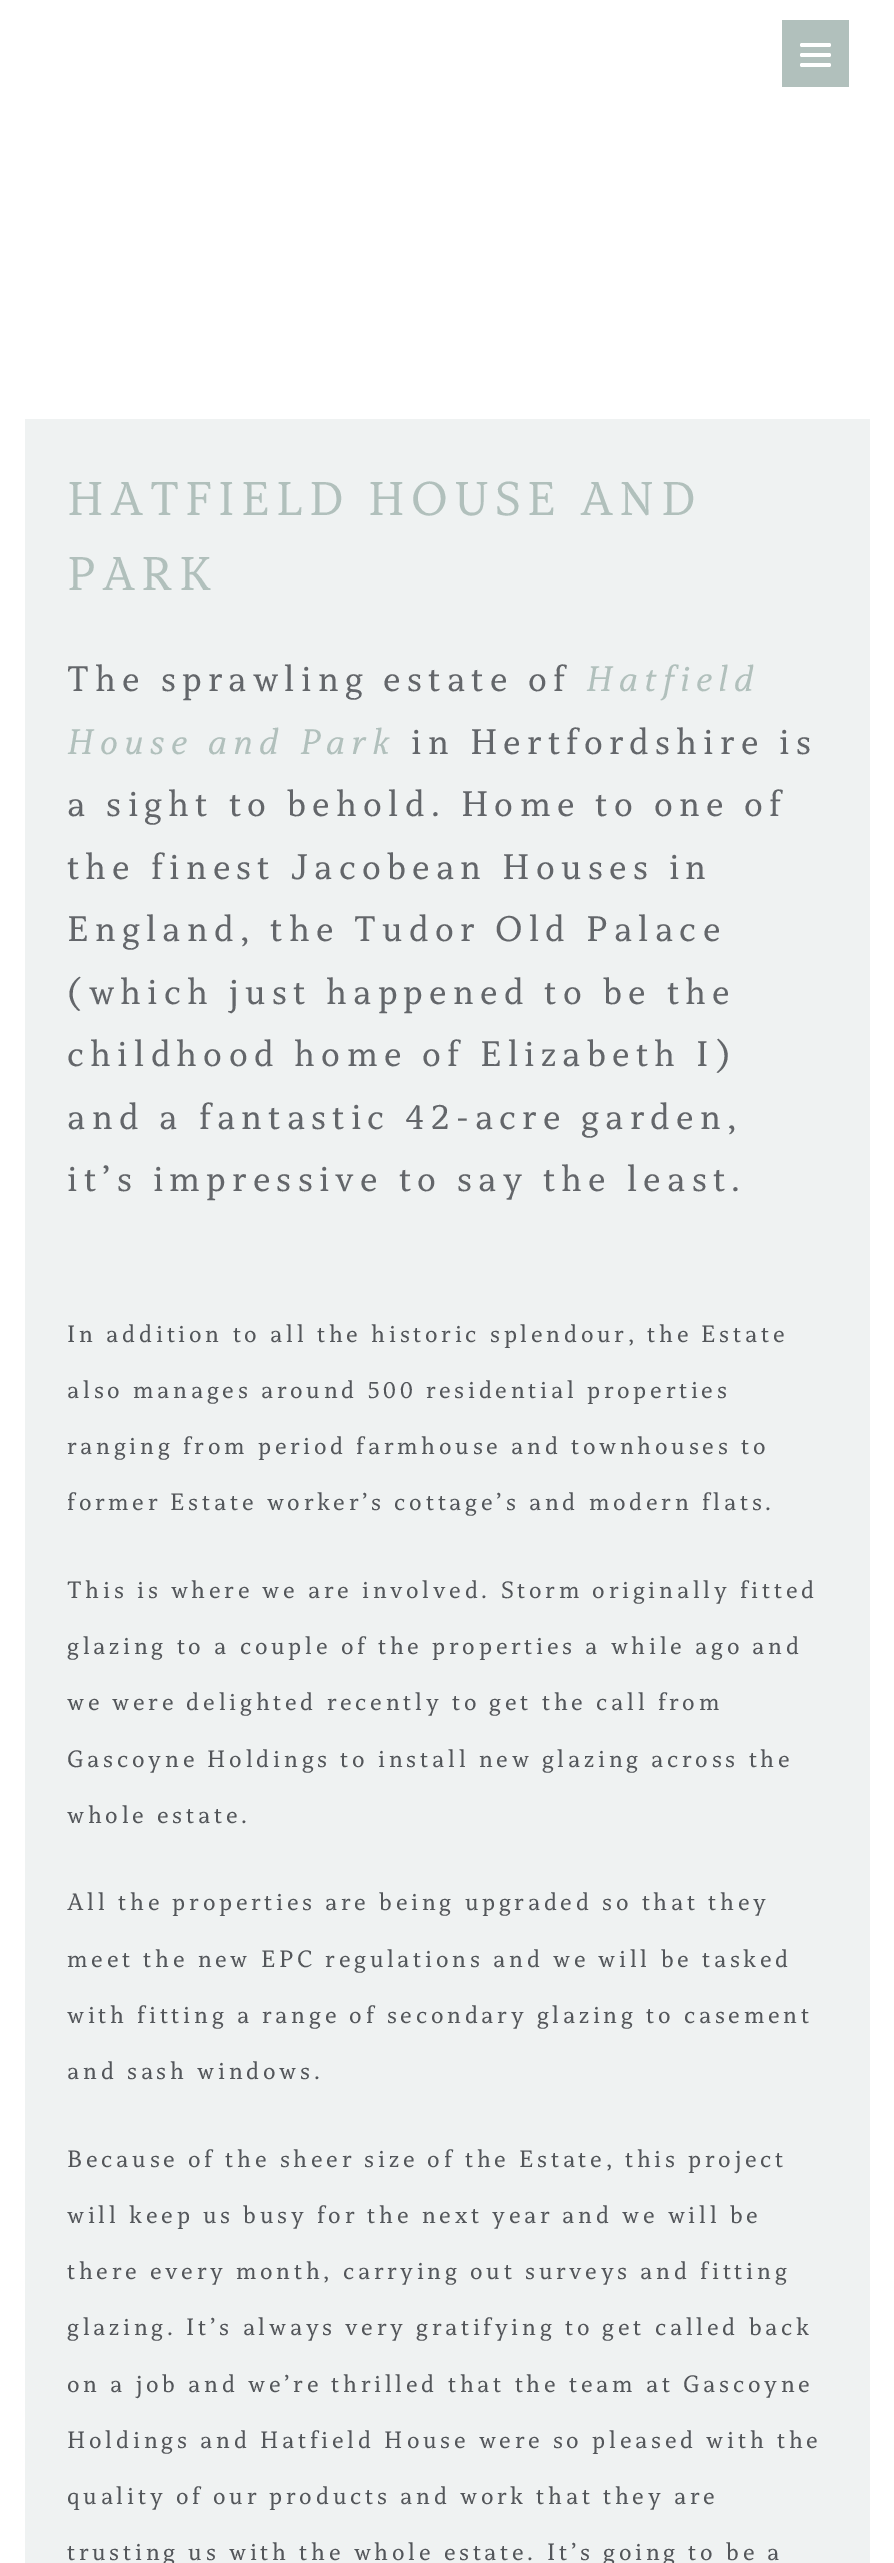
%!PS-Adobe-3.0
%%BoundingBox: 0 0 894 2563
%%LanguageLevel: 3
%%Pages: 1
%%EndComments
%%BeginProlog
/rrect { 5 dict begin { /r /h /w /y /x } { exch def } forall
  x r add y moveto x w add y 2 copy h add r arct x w add y h add x 1 index r arct
  x y h add x y r arct x y 2 copy exch w add exch r arct closepath end } def
%%EndProlog
%%BeginSetup
<< /PageSize [894 2563] >> setpagedevice
%%EndSetup
%%Page: 1 1
0 2563 translate 1 -1 scale
4 setmiterlimit
1 setgray
0 0 894 2563 rectfill
0.694 0.753 0.737 setrgbcolor
782 20 67 67 rectfill
1 setgray
800 53 31 4 2 rrect fill
800 43 31 4 2 rrect fill
800 63 31 4 2 rrect fill
0.937 0.949 0.949 setrgbcolor
25 419 845 2144 rectfill
/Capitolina-Regular [50 0 0 -50 0 0] selectfont
0.694 0.753 0.737 setrgbcolor
67 515 moveto 6.25 0 (HATFIELD HOUSE AND) ashow
67 590 moveto 6.25 0 (PARK) ashow
/Capitolina-Regular [37.5 0 0 -37.5 0 0] selectfont
0.388 0.4 0.416 setrgbcolor
67 691 moveto 6.25 0 (The sprawling estate of) ashow
/Capitolina-Italic [37.5 0 0 -37.5 0 0] selectfont
0.694 0.753 0.737 setrgbcolor
586 691 moveto 6.25 0 (Hatfield) ashow
67 754 moveto 6.25 0 (House and Park) ashow
/Capitolina-Regular [37.5 0 0 -37.5 0 0] selectfont
0.388 0.4 0.416 setrgbcolor
411 754 moveto 6.25 0 (in Hertfordshire is) ashow
67 816 moveto 6.25 0 (a sight to behold. Home to one of) ashow
67 879 moveto 6.25 0 (the finest Jacobean Houses in) ashow
67 941 moveto 6.25 0 (England, the Tudor Old Palace) ashow
67 1004 moveto 6.25 0 (\(which just happened to be the) ashow
67 1066 moveto 6.25 0 (childhood home of Elizabeth I\)) ashow
67 1129 moveto 6.25 0 (and a fantastic 42-acre garden,) ashow
67 1191 moveto 6.25 0 (it’s impressive to say the least.) ashow
/Capitolina-Regular [25 0 0 -25 0 0] selectfont
0.325 0.337 0.353 setrgbcolor
67 1342 moveto 3.75 0 (In addition to all the historic splendour, the Estate) ashow
67 1398 moveto 3.75 0 (also manages around 500 residential properties) ashow
67 1454 moveto 3.75 0 (ranging from period farmhouse and townhouses to) ashow
67 1510 moveto 3.75 0 (former Estate worker’s cottage’s and modern flats.) ashow
67 1598 moveto 3.75 0 (This is where we are involved. Storm originally fitted) ashow
67 1654 moveto 3.75 0 (glazing to a couple of the properties a while ago and) ashow
67 1710 moveto 3.75 0 (we were delighted recently to get the call from) ashow
67 1767 moveto 3.75 0 (Gascoyne Holdings to install new glazing across the) ashow
67 1823 moveto 3.75 0 (whole estate.) ashow
67 1910 moveto 3.75 0 (All the properties are being upgraded so that they) ashow
67 1967 moveto 3.75 0 (meet the new EPC regulations and we will be tasked) ashow
67 2023 moveto 3.75 0 (with fitting a range of secondary glazing to casement) ashow
67 2079 moveto 3.75 0 (and sash windows.) ashow
67 2167 moveto 3.75 0 (Because of the sheer size of the Estate, this project) ashow
67 2223 moveto 3.75 0 (will keep us busy for the next year and we will be) ashow
67 2279 moveto 3.75 0 (there every month, carrying out surveys and fitting) ashow
67 2335 moveto 3.75 0 (glazing. It’s always very gratifying to get called back) ashow
67 2392 moveto 3.75 0 (on a job and we’re thrilled that the team at Gascoyne) ashow
67 2448 moveto 3.75 0 (Holdings and Hatfield House were so pleased with the) ashow
67 2504 moveto 3.75 0 (quality of our products and work that they are) ashow
67 2560 moveto 3.75 0 (trusting us with the whole estate. It’s going to be a) ashow
showpage
%%EOF
